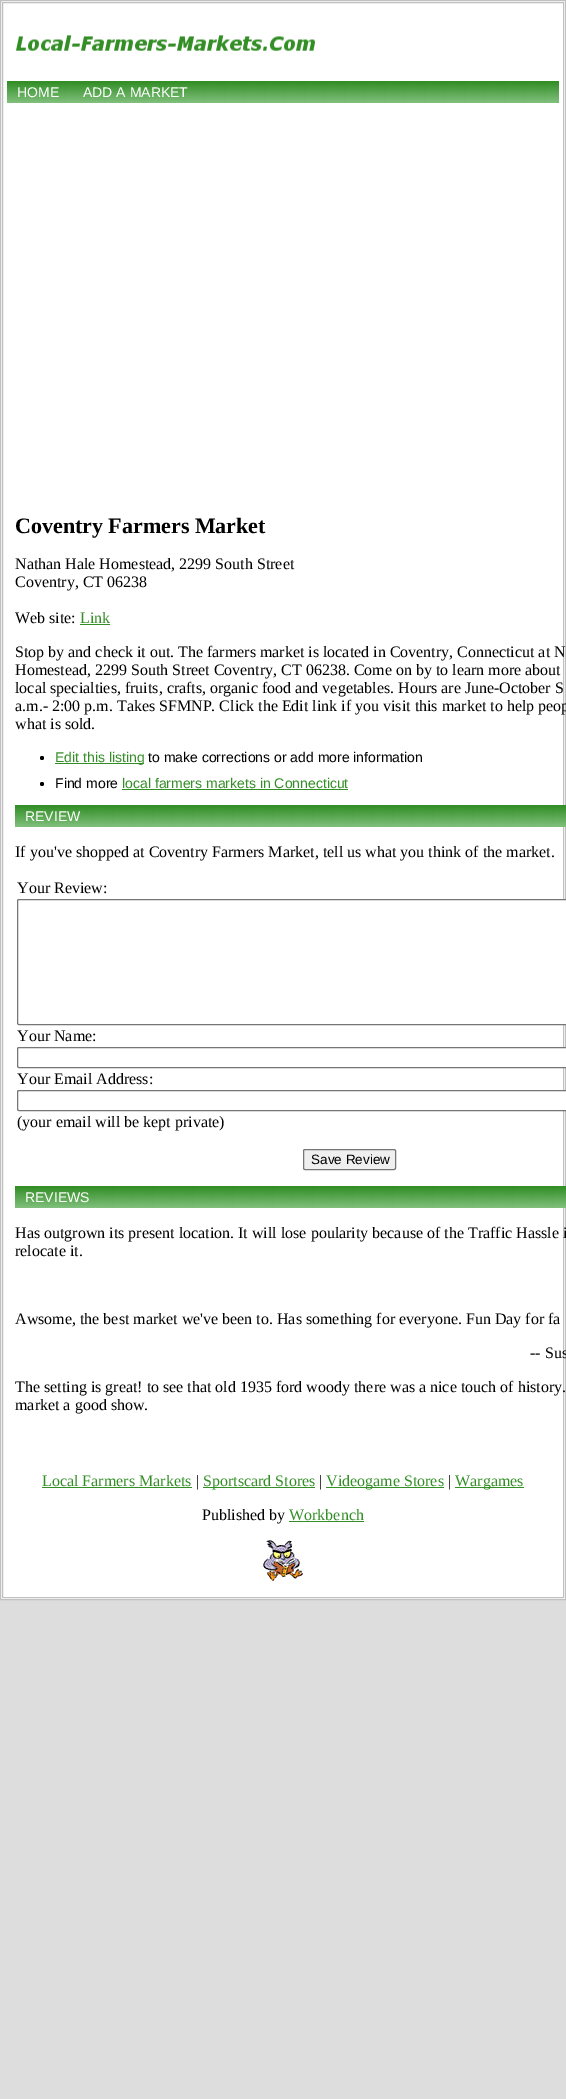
%!PS-Adobe-3.0
%%BoundingBox: 0 0 566 2099
%%LanguageLevel: 3
%%Pages: 1
%%EndComments
%%BeginProlog
/rrect { 5 dict begin { /r /h /w /y /x } { exch def } forall
  x r add y moveto x w add y 2 copy h add r arct x w add y h add x 1 index r arct
  x y h add x y r arct x y 2 copy exch w add exch r arct closepath end } def
/drawimage { 5 dict begin { /h /w /y /x /name } { exch def } forall
  gsave x y translate w h scale
  w h 8 [w 0 0 h 0 0] name (r) file false 3 colorimage grestore end } def
%%EndProlog
%%BeginSetup
<< /PageSize [566 2099] >> setpagedevice
%%EndSetup
%%Page: 1 1
0 2099 translate 1 -1 scale
4 setmiterlimit
0.867 setgray
0 0 566 2099 rectfill
1 setgray
newpath 0.5 0.5 moveto 565.5 0.5 lineto 565.5 1599.5 lineto 0.5 1599.5 lineto closepath gsave fill grestore
0.753 setgray
stroke
2.5 2.5 561 1595 rectstroke
(images/1.raw) 16 35 299 16 drawimage
0.2 0.557 0.149 setrgbcolor
7 81 552 2 rectfill
(images/2.raw) 7 83 552 20 drawimage
80 624 30 1 rectfill
0 setgray
newpath 42 758 2 0 360 arc closepath fill
0.2 0.557 0.149 setrgbcolor
55 763 89 1 rectfill
0 setgray
newpath 42 784 2 0 360 arc closepath fill
0.2 0.557 0.149 setrgbcolor
122 789 226 1 rectfill
(images/3.raw) 15 805 551 22 drawimage
1 setgray
17.5 899.5 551 125 1.5 rrect gsave fill grestore
0.463 setgray
stroke
1 setgray
17.5 1047.5 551 20 1.5 rrect gsave fill grestore
0.463 setgray
stroke
1 setgray
17.5 1090.5 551 20 1.5 rrect gsave fill grestore
0.463 setgray
stroke
0.937 setgray
303.5 1149.5 92 20 1.5 rrect gsave fill grestore
0.463 setgray
stroke
(images/3.raw) 15 1186 551 22 drawimage
0.2 0.557 0.149 setrgbcolor
42 1487 150 1 rectfill
203 1487 112 1 rectfill
326 1487 118 1 rectfill
455 1487 69 1 rectfill
289 1521 75 1 rectfill
(images/4.raw) 263 1540 40 41 drawimage
/LiberationSans-Regular [14 0 0 -14 0 0] selectfont
1 setgray
17 97 moveto (HOME) show
83 97 moveto (ADD A MARKET) show
/LiberationSerif-Bold [22 0 0 -22 0 0] selectfont
0 setgray
15 533 moveto (Coventry Farmers Market) show
/LiberationSerif-Regular [16 0 0 -16 0 0] selectfont
15 569 moveto (Nathan Hale Homestead, 2299 South Street) show
15 587 moveto (Coventry, CT 06238) show
15 623 moveto (Web site:) show
0.2 0.557 0.149 setrgbcolor
80 623 moveto (Link) show
0 setgray
15 657 moveto (Stop by and check it out. The farmers market is located in Coventry, Connecticut at N) show
15 675 moveto (Homestead, 2299 South Street Coventry, CT 06238. Come on by to learn more about) show
15 693 moveto (local specialties, fruits, crafts, organic food and vegetables. Hours are June-October S) show
15 711 moveto (a.m.- 2:00 p.m. Takes SFMNP. Click the Edit link if you visit this market to help peop) show
15 729 moveto (what is sold.) show
/LiberationSans-Regular [14 0 0 -14 0 0] selectfont
0.2 0.557 0.149 setrgbcolor
55 762 moveto (Edit this listing) show
0 setgray
148 762 moveto (to make corrections or add more information) show
55 788 moveto (Find more) show
0.2 0.557 0.149 setrgbcolor
122 788 moveto (local farmers markets in Connecticut) show
1 setgray
25 821 moveto (REVIEW) show
/LiberationSerif-Regular [16 0 0 -16 0 0] selectfont
0 setgray
15 857 moveto (If you've shopped at Coventry Farmers Market, tell us what you think of the market.) show
17 893 moveto (Your Review:) show
17 1041 moveto (Your Name:) show
17 1084 moveto (Your Email Address:) show
17 1127 moveto (\(your email will be kept private\)) show
/LiberationSans-Regular [13.5 0 0 -13.5 0 0] selectfont
311 1164 moveto (Save Review) show
/LiberationSans-Regular [14 0 0 -14 0 0] selectfont
1 setgray
25 1202 moveto (REVIEWS) show
/LiberationSerif-Regular [16 0 0 -16 0 0] selectfont
0 setgray
15 1238 moveto (Has outgrown its present location. It will lose poularity because of the Traffic Hassle i) show
15 1256 moveto (relocate it.) show
15 1324 moveto (Awsome, the best market we've been to. Has something for everyone. Fun Day for fa) show
530 1358 moveto (-- Sus) show
15 1392 moveto (The setting is great! to see that old 1935 ford woody there was a nice touch of history.) show
15 1410 moveto (market a good show.) show
0.2 0.557 0.149 setrgbcolor
42 1486 moveto (Local Farmers Markets) show
0 setgray
196 1486 moveto (|) show
0.2 0.557 0.149 setrgbcolor
203 1486 moveto (Sportscard Stores) show
0 setgray
319 1486 moveto (|) show
0.2 0.557 0.149 setrgbcolor
326 1486 moveto (Videogame Stores) show
0 setgray
448 1486 moveto (|) show
0.2 0.557 0.149 setrgbcolor
455 1486 moveto (Wargames) show
0 setgray
202 1520 moveto (Published by) show
0.2 0.557 0.149 setrgbcolor
289 1520 moveto (Workbench) show
showpage
%%EOF
